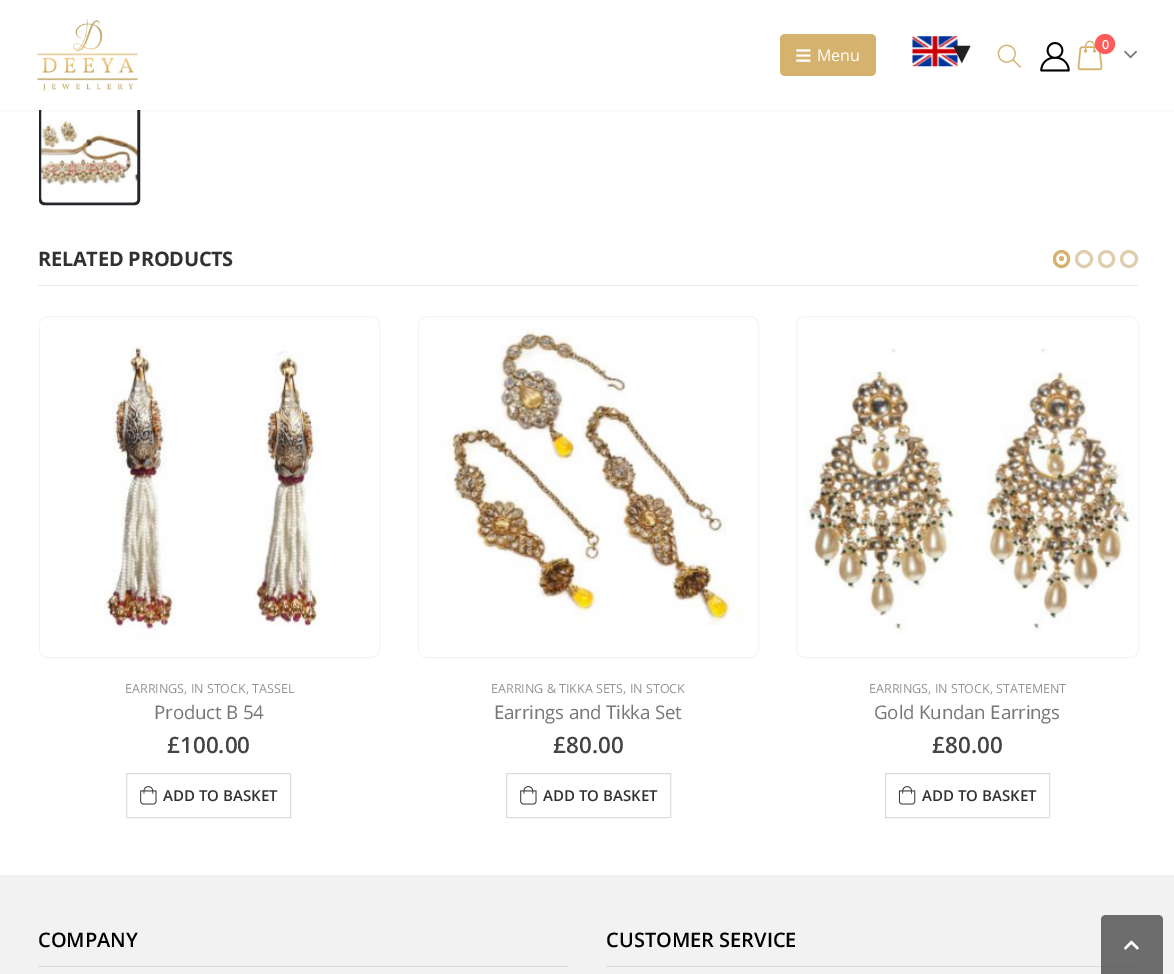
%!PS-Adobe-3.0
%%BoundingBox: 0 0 1174 974
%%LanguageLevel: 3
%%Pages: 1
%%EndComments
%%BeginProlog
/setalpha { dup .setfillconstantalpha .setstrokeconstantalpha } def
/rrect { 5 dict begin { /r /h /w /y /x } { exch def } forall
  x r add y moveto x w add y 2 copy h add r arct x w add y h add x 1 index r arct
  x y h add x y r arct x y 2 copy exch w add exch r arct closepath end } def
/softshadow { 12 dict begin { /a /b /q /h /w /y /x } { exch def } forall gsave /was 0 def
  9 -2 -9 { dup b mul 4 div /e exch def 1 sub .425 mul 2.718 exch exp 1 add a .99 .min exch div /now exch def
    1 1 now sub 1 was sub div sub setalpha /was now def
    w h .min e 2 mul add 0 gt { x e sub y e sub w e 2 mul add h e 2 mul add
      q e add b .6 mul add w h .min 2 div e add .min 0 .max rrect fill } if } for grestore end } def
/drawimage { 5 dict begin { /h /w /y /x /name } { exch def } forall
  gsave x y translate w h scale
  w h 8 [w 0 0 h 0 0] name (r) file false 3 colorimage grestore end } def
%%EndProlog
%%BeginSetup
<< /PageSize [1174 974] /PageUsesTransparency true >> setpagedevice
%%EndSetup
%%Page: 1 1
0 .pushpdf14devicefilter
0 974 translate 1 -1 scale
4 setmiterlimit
1 setgray
0 0 1174 974 rectfill
0.133 0.145 0.161 setrgbcolor
3 setlinewidth
40.5 105.5 98 98 3.5 rrect stroke
(images/8.raw) 41 110 97 94 drawimage
0 setgray
0 0 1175 110 0 2 0.06 softshadow
1 setgray
0 0 1174 110 rectfill
(images/1.raw) 37 19 101 72 drawimage
0.835 0.702 0.435 setrgbcolor
780 34 96 42 5 rrect fill
(images/2.raw) 796 49 15 13 drawimage
(images/3.raw) 912 36 46 31 drawimage
(images/4.raw) 997 44 24 24 drawimage
(images/5.raw) 1040 42 30 30 drawimage
(images/6.raw) 1077 40 26 31 drawimage
1 0.357 0.357 setrgbcolor
newpath 1105 44 10 0 360 arc closepath fill
(images/7.raw) 1124 50 13 9 drawimage
0.922 setgray
38 285 1100 1 rectfill
0.835 0.702 0.435 setrgbcolor
1054.5 251.5 14 15 7 rrect stroke
newpath 1061.5 258.5 2.5 0 360 arc closepath fill
0.871 0.808 0.678 setrgbcolor
newpath 1084 259 7.5 0 360 arc closepath stroke
1099.5 251.5 14 15 7 rrect stroke
newpath 1129 259 7.5 0 360 arc closepath stroke
0.957 setgray
1 setlinewidth
39.5 316.5 340 341 8.5 rrect stroke
(images/9.raw) 40 321 285 333 drawimage
0.867 setgray
126.5 773.5 164 44 rectstroke
(images/10.raw) 140 786 17 19 drawimage
0.957 setgray
418.5 316.5 340 341 8.5 rrect stroke
(images/11.raw) 419 321 325 335 drawimage
0.867 setgray
506.5 773.5 164 44 rectstroke
(images/10.raw) 520 786 17 19 drawimage
0.957 setgray
796.5 316.5 342 341 8.5 rrect stroke
(images/12.raw) 801 348 333 286 drawimage
0.867 setgray
885.5 773.5 164 44 rectstroke
(images/13.raw) 898 786 18 19 drawimage
0.949 setgray
0 875 1174 99 rectfill
0.855 setgray
38 966 531 1 rectfill
606 966 532 1 rectfill
0.75 setalpha
0.251 setgray
newpath 1106 915 moveto 1158 915 lineto 1161 915 1163 917 1163 920 curveto 1163 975 lineto 1101 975 lineto 1101 920 lineto 1101 917 1103 915 1106 915 curveto closepath fill
1 setalpha
(images/14.raw) 1124 940 15 10 drawimage
/OpenSans-Regular [16 0 0 -16 0 0] selectfont
1 setgray
817 61 moveto (Menu) show
/LiberationSans-Bold [30 0 0 -30 0 0] selectfont
0.129 setgray
947 63 moveto (▼) show
/OpenSans-SemiBold [12.5 0 0 -12.5 0 0] selectfont
1 setgray
1102 49 moveto (0) show
/OpenSans-Bold [20 0 0 -20 0 0] selectfont
0.192 setgray
38 266 moveto -0.25 0 (RELATED PRODUCTS) ashow
/OpenSans-Regular [12.5 0 0 -12.5 0 0] selectfont
0.573 setgray
125 693 moveto (EARRINGS, IN STOCK, TASSEL) show
/OpenSans-Regular [18.75 0 0 -18.75 0 0] selectfont
0.467 setgray
154 719 moveto -0.2 0 (Product B 54) ashow
/OpenSans-SemiBold [22.5 0 0 -22.5 0 0] selectfont
0.267 setgray
167 753 moveto (£100.00) show
/OpenSans-SemiBold [15 0 0 -15 0 0] selectfont
0.192 setgray
163 801 moveto (ADD TO BASKET) show
/OpenSans-Regular [12.5 0 0 -12.5 0 0] selectfont
0.573 setgray
491 693 moveto (EARRING & TIKKA SETS, IN STOCK) show
/OpenSans-Regular [18.75 0 0 -18.75 0 0] selectfont
0.467 setgray
494 719 moveto -0.2 0 (Earrings and Tikka Set) ashow
/OpenSans-SemiBold [22.5 0 0 -22.5 0 0] selectfont
0.267 setgray
553 753 moveto (£80.00) show
/OpenSans-SemiBold [15 0 0 -15 0 0] selectfont
0.192 setgray
543 801 moveto (ADD TO BASKET) show
/OpenSans-Regular [12.5 0 0 -12.5 0 0] selectfont
0.573 setgray
869 693 moveto (EARRINGS, IN STOCK, STATEMENT) show
/OpenSans-Regular [18.75 0 0 -18.75 0 0] selectfont
0.467 setgray
874 719 moveto -0.2 0 (Gold Kundan Earrings) ashow
/OpenSans-SemiBold [22.5 0 0 -22.5 0 0] selectfont
0.267 setgray
932 753 moveto (£80.00) show
/OpenSans-SemiBold [15 0 0 -15 0 0] selectfont
0.192 setgray
922 801 moveto (ADD TO BASKET) show
/OpenSans-SemiBold [20 0 0 -20 0 0] selectfont
0 setgray
38 947 moveto (COMPANY) show
606 947 moveto (CUSTOMER SERVICE) show
.poppdf14devicefilter showpage
%%EOF
